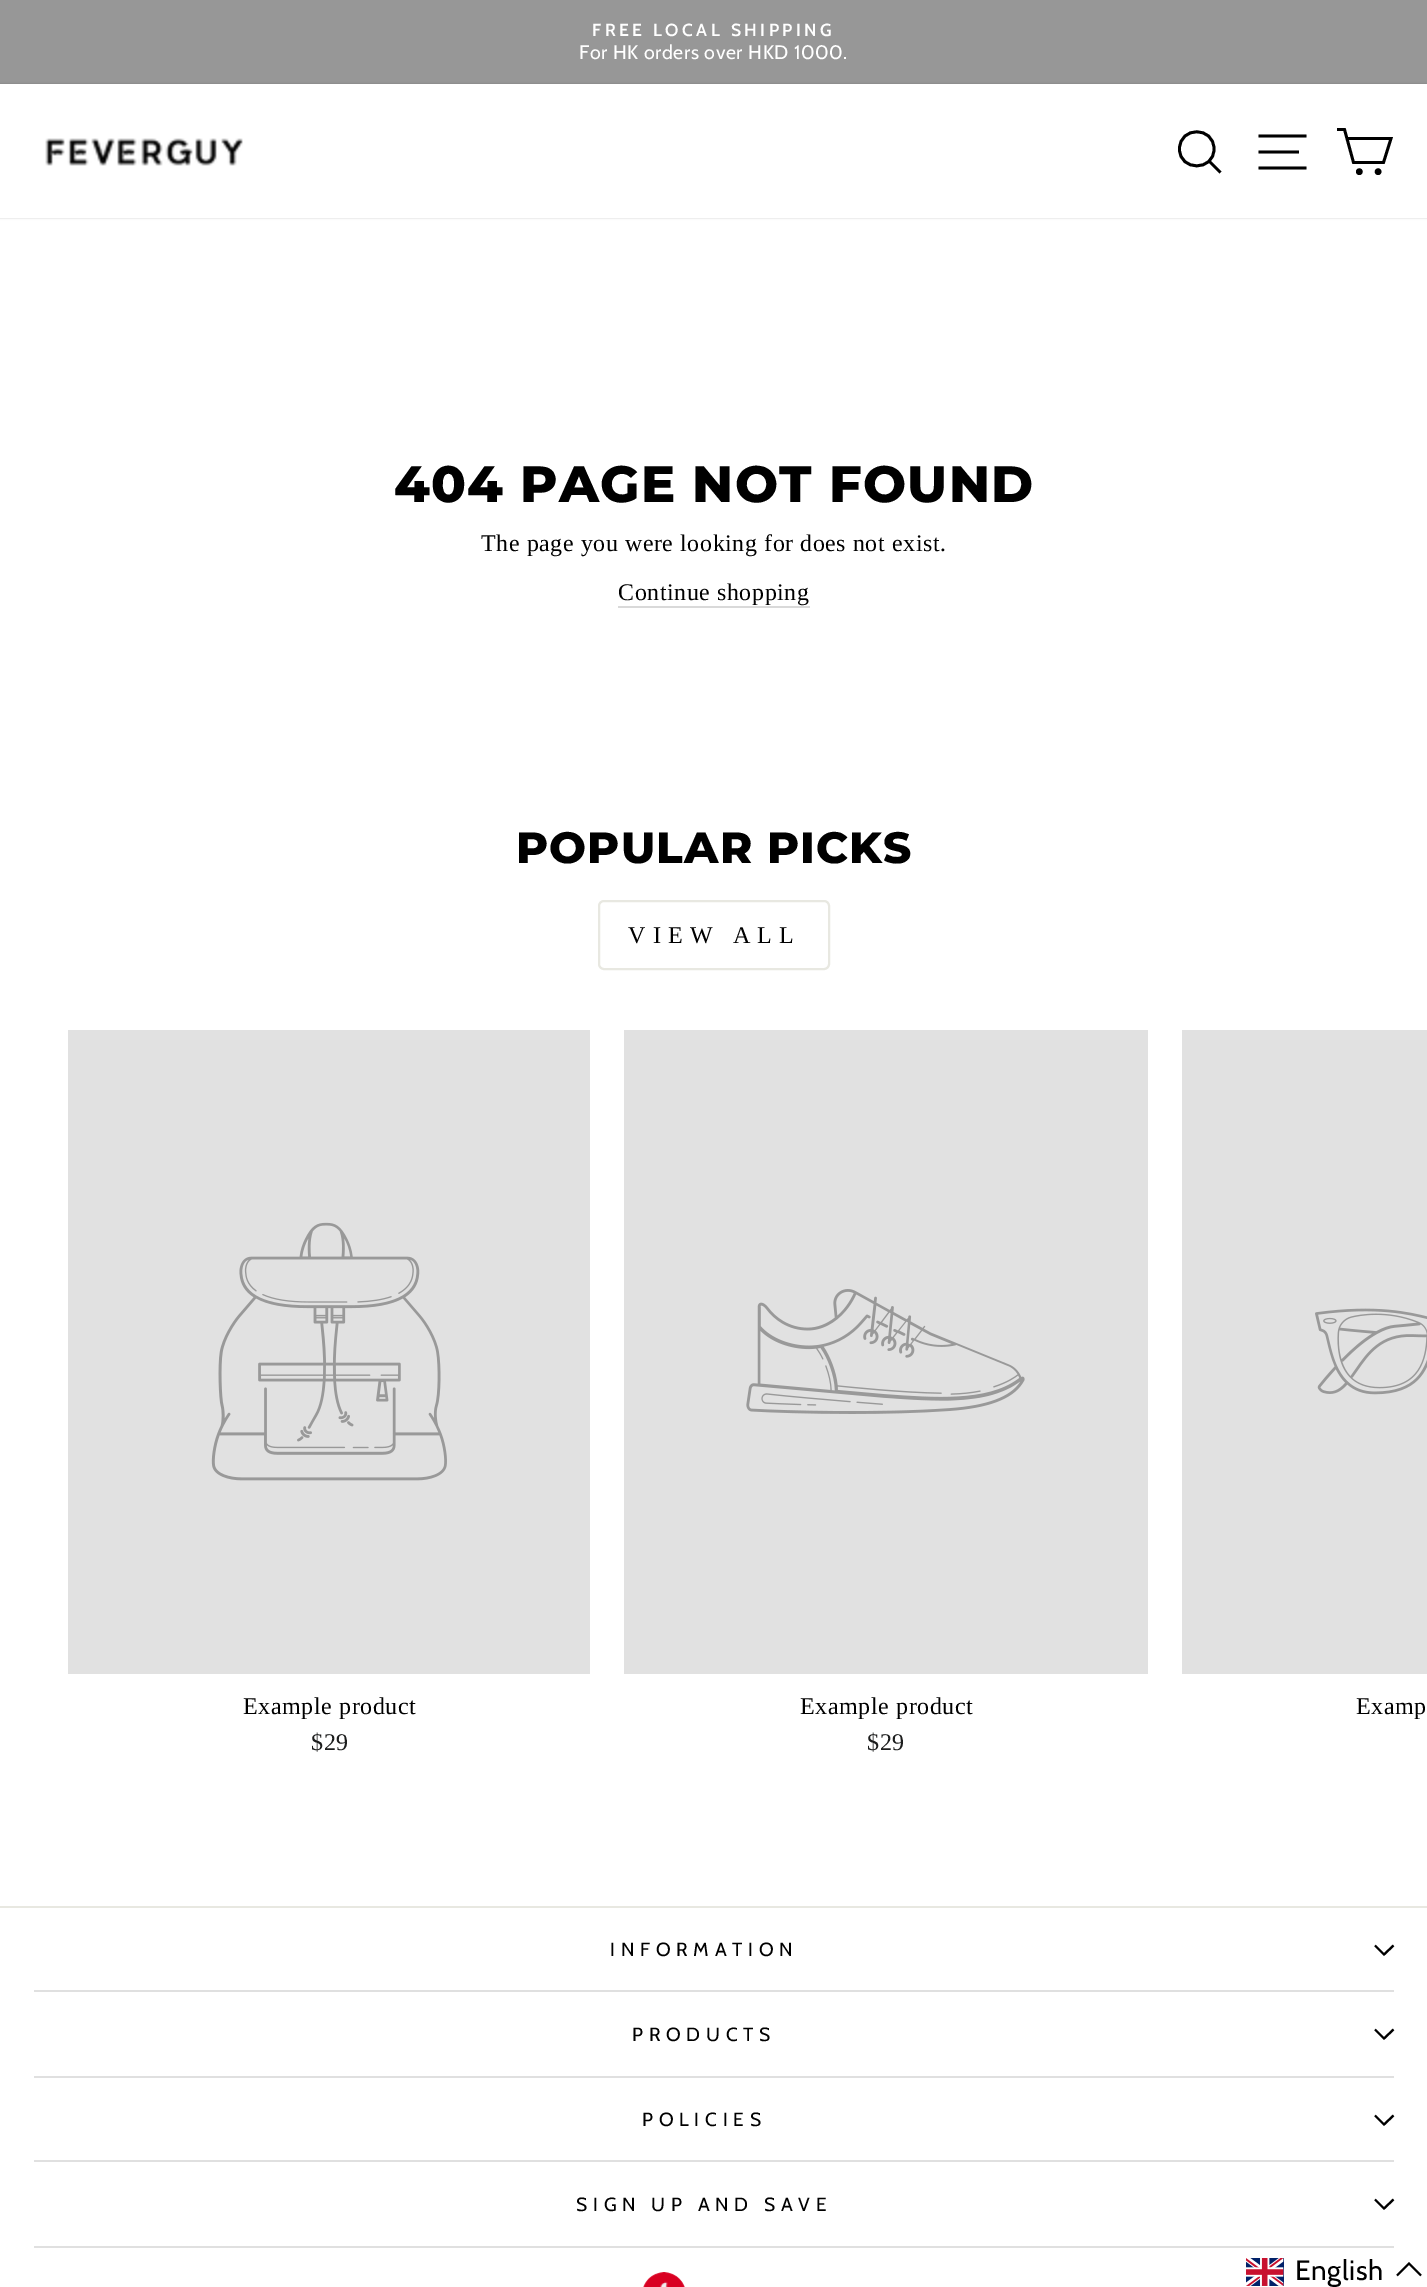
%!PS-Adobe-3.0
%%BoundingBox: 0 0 1427 2287
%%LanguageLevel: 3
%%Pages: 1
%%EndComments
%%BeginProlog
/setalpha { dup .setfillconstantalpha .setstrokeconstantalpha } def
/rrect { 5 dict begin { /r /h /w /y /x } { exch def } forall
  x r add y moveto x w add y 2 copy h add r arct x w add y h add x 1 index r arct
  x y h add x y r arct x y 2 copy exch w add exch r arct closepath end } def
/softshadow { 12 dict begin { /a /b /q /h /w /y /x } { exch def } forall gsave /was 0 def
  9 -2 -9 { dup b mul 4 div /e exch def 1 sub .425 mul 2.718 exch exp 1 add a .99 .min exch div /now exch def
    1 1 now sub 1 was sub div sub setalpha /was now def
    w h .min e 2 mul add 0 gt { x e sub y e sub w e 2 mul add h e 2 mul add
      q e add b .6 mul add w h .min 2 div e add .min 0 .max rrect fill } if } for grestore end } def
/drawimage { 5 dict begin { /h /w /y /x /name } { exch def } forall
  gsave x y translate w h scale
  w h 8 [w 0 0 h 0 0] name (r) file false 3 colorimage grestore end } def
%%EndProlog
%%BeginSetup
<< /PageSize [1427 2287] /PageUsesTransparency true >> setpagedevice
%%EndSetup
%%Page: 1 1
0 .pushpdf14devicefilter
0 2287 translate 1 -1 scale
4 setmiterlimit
1 setgray
0 0 1427 2287 rectfill
0.592 setgray
0 0 1427 84 rectfill
gsave
newpath 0 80 moveto 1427 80 lineto 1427 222 lineto 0 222 lineto closepath 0 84 moveto 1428 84 lineto 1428 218 lineto 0 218 lineto closepath eoclip newpath
0 setgray
0 84 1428 134 0 1 0.2 softshadow
grestore
(images/1.raw) 45 138 198 28 drawimage
0 setgray
2.8 setlinewidth
newpath 1214 149 moveto 1214 171.5 1179.5 171.5 1179.5 149 curveto 1179.5 126 1214 126 1214 149 curveto closepath 1220.5 172.5 moveto 1209.5 161.5 lineto stroke
newpath 1258.5 136 moveto 1306.5 136 lineto 1258.5 152 moveto 1299 152 lineto 1258.5 168 moveto 1306.5 168 lineto stroke
newpath 1347 138.5 moveto 1391 138.5 lineto 1383.5 162.5 lineto 1353.5 162.5 lineto 1344.5 129.5 lineto 1337 129.5 lineto stroke
newpath 1359.3 171.7 1.9 0 360 arc closepath gsave fill grestore
stroke
newpath 1378.1 171.7 1.9 0 360 arc closepath gsave fill grestore
stroke
0.851 setgray
618 606 192 2 rectfill
0.91 0.91 0.882 setrgbcolor
2 setlinewidth
599 901 230 68 5 rrect stroke
0.882 setgray
68 1030 522 644 rectfill
(images/2.raw) 211 1222 236 259 drawimage
624 1030 524 644 rectfill
(images/3.raw) 746 1289 279 125 drawimage
1182 1030 245 644 rectfill
(images/4.raw) 1315 1308 112 87 drawimage
0.91 0.91 0.882 setrgbcolor
0 1906 1427 2 rectfill
0 setgray
2.1 setlinewidth
newpath 1375 1945.5 moveto 1384 1954.5 lineto 1393.5 1945.5 lineto stroke
0.878 setgray
34 1990 1360 2 rectfill
0 setgray
newpath 1375 2029.5 moveto 1384 2038.5 lineto 1393.5 2029.5 lineto stroke
0.878 setgray
34 2076 1360 2 rectfill
0 setgray
newpath 1375 2115.5 moveto 1384 2124.5 lineto 1393.5 2115.5 lineto stroke
0.878 setgray
34 2160 1360 2 rectfill
0 setgray
newpath 1375 2199.5 moveto 1384 2208.5 lineto 1393.5 2199.5 lineto stroke
0.878 setgray
34 2246 1360 2 rectfill
(images/5.raw) 643 2272 42 15 drawimage
(images/6.raw) 1246 2258 38 28 drawimage
0 setgray
2 setlinewidth
newpath 1421 2275.5 moveto 1409 2263.5 lineto 1397 2275.5 lineto stroke
/Cabin-SemiBold [17.5 0 0 -17.5 0 0] selectfont
1 setgray
592 36 moveto 3.5 0 (FREE LOCAL SHIPPING) ashow
/Cabin-Regular [19.5 0 0 -19.5 0 0] selectfont
579 59 moveto 0.6 0 (For HK orders over HKD 1000.) ashow
/Montserrat-ExtraBold [51 0 0 -51 0 0] selectfont
0 setgray
394 502 moveto 1.25 0 (404 PAGE NOT FOUND) ashow
/LiberationSerif-Regular [23.9 0 0 -23.9 0 0] selectfont
481 551 moveto 0.6 0 (The page you were looking for does not exist.) ashow
618 600 moveto 0.6 0 (Continue shopping) ashow
/Montserrat-ExtraBold [43.75 0 0 -43.75 0 0] selectfont
516 863 moveto 1.1 0 (POPULAR PICKS) ashow
/LiberationSerif-Regular [24 0 0 -24 0 0] selectfont
628 943 moveto 7.25 0 (VIEW ALL) ashow
243 1714 moveto 0.6 0 (Example product) ashow
0.11 0.114 0.114 setrgbcolor
311 1750 moveto 0.6 0 ($29) ashow
0 setgray
800 1714 moveto 0.6 0 (Example product) ashow
0.11 0.114 0.114 setrgbcolor
867 1750 moveto 0.6 0 ($29) ashow
0 setgray
1356 1714 moveto 0.6 0 (Examp) ashow
/Cabin-Regular [19.1 0 0 -19.1 0 0] selectfont
610 1956 moveto 5.75 0 (INFORMATION) ashow
632 2041 moveto 5.75 0 (PRODUCTS) ashow
642 2126 moveto 5.75 0 (POLICIES) ashow
576 2211 moveto 5.75 0 (SIGN UP AND SAVE) ashow
/Cabin-Regular [28 0 0 -28 0 0] selectfont
1295 2280 moveto 0.6 0 (English) ashow
.poppdf14devicefilter showpage
%%EOF
